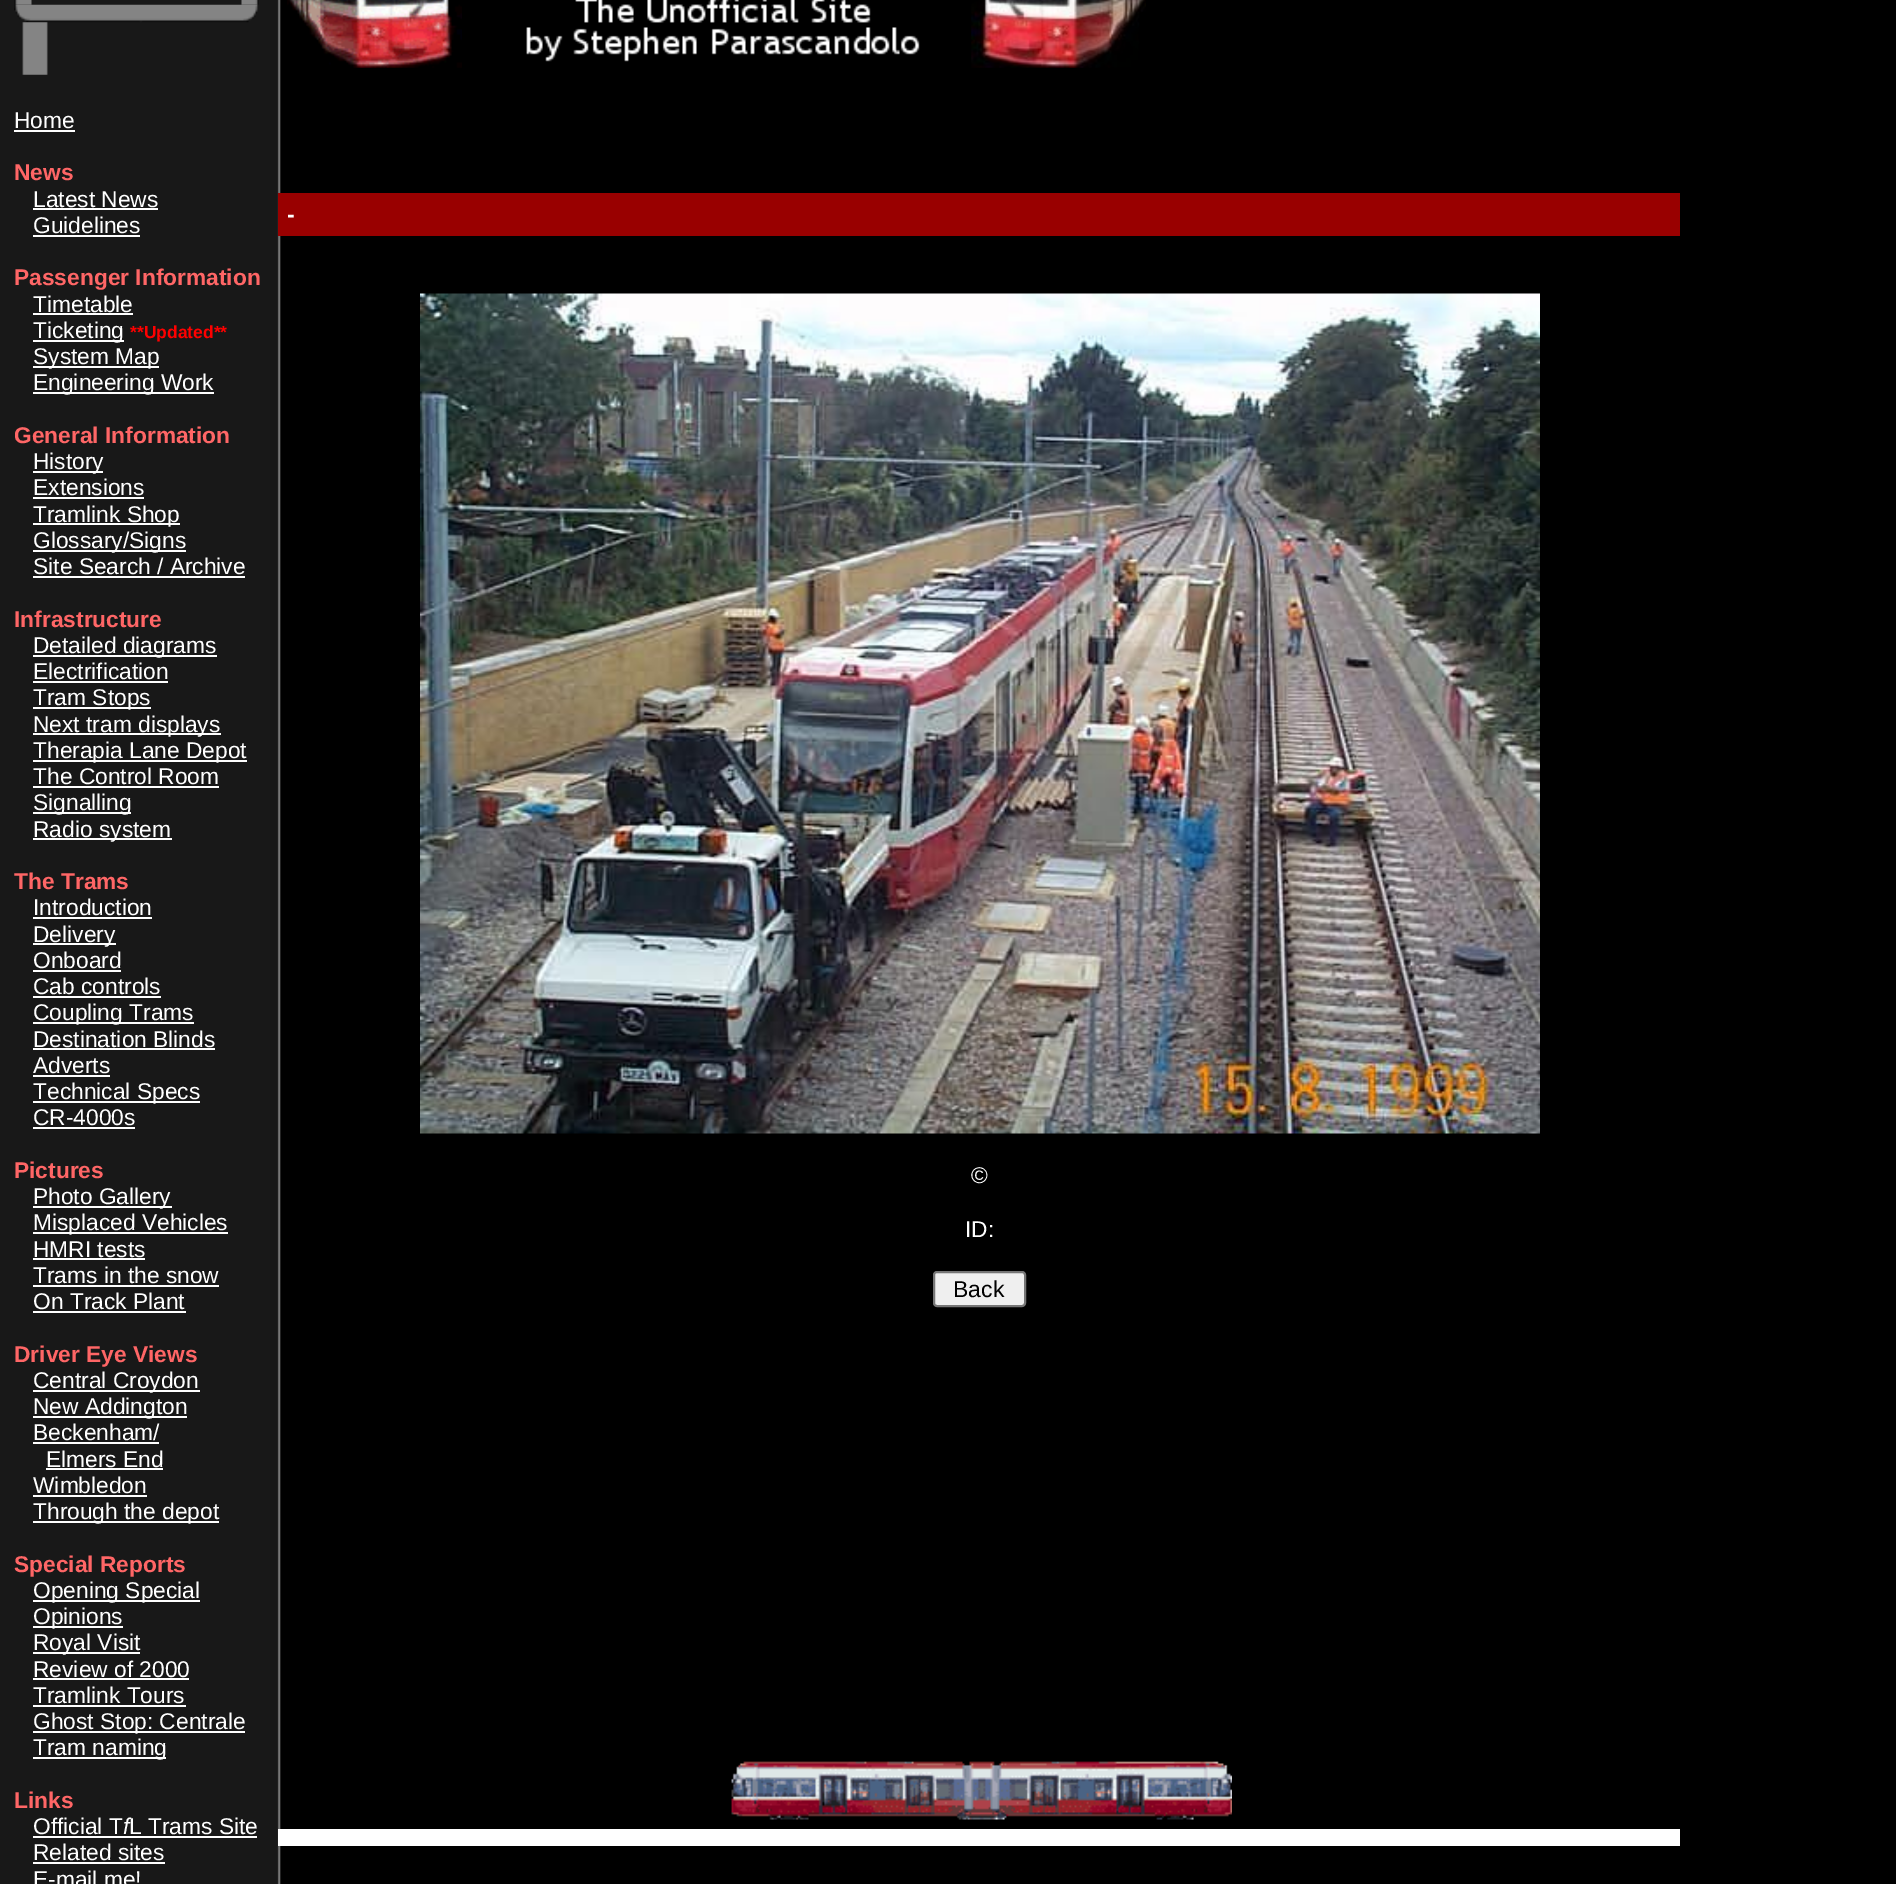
%!PS-Adobe-3.0
%%BoundingBox: 0 0 1896 1884
%%LanguageLevel: 3
%%Pages: 1
%%EndComments
%%BeginProlog
/rrect { 5 dict begin { /r /h /w /y /x } { exch def } forall
  x r add y moveto x w add y 2 copy h add r arct x w add y h add x 1 index r arct
  x y h add x y r arct x y 2 copy exch w add exch r arct closepath end } def
/drawimage { 5 dict begin { /h /w /y /x /name } { exch def } forall
  gsave x y translate w h scale
  w h 8 [w 0 0 h 0 0] name (r) file false 3 colorimage grestore end } def
%%EndProlog
%%BeginSetup
<< /PageSize [1896 1884] >> setpagedevice
%%EndSetup
%%Page: 1 1
0 1884 translate 1 -1 scale
4 setmiterlimit
0 setgray
0 0 1896 1884 rectfill
(images/1.raw) 0 0 281 1884 drawimage
(images/2.raw) 14 0 18 5 drawimage
(images/3.raw) 241 0 18 5 drawimage
(images/4.raw) 14 4 244 19 drawimage
(images/5.raw) 22 22 26 53 drawimage
1 setgray
14 130 61 2 rectfill
33 208 125 2 rectfill
33 235 107 2 rectfill
33 313 100 2 rectfill
33 340 91 2 rectfill
33 366 126 2 rectfill
33 392 181 2 rectfill
33 471 70 2 rectfill
33 497 111 2 rectfill
33 523 147 2 rectfill
33 550 153 2 rectfill
33 576 212 2 rectfill
33 655 184 2 rectfill
33 681 135 2 rectfill
33 707 118 2 rectfill
33 733 188 2 rectfill
33 760 214 2 rectfill
33 786 186 2 rectfill
33 812 98 2 rectfill
33 838 139 2 rectfill
33 917 119 2 rectfill
33 943 83 2 rectfill
33 970 88 2 rectfill
33 996 128 2 rectfill
33 1022 161 2 rectfill
33 1048 182 2 rectfill
33 1075 77 2 rectfill
33 1101 167 2 rectfill
33 1127 102 2 rectfill
33 1206 139 2 rectfill
33 1232 195 2 rectfill
33 1258 112 2 rectfill
33 1285 186 2 rectfill
33 1311 153 2 rectfill
33 1390 167 2 rectfill
33 1416 154 2 rectfill
33 1442 126 2 rectfill
46 1468 117 2 rectfill
33 1495 114 2 rectfill
33 1521 186 2 rectfill
33 1600 167 2 rectfill
33 1626 90 2 rectfill
33 1652 107 2 rectfill
33 1678 156 2 rectfill
33 1705 153 2 rectfill
33 1731 212 2 rectfill
33 1757 133 2 rectfill
33 1836 224 2 rectfill
33 1862 132 2 rectfill
(images/6.raw) 287 0 175 68 drawimage
(images/7.raw) 526 0 394 62 drawimage
(images/8.raw) 971 0 175 68 drawimage
0.6 0 0 setrgbcolor
278 193 1402 43 rectfill
(images/9.raw) 420 293 1120 841 drawimage
0.937 setgray
934 1272 91 34 3 rrect gsave fill grestore
0.463 setgray
2 setlinewidth
stroke
(images/10.raw) 731 1761 501 59 drawimage
1 setgray
278 1829 1402 17 rectfill
/LiberationSans-Regular [22.75 0 0 -22.75 0 0] selectfont
14 128 moveto (Home) show
/LiberationSans-Bold [22.75 0 0 -22.75 0 0] selectfont
1 0.4 0.4 setrgbcolor
14 180 moveto (News) show
/LiberationSans-Regular [22.75 0 0 -22.75 0 0] selectfont
1 setgray
33 207 moveto (Latest News) show
33 233 moveto (Guidelines) show
/LiberationSans-Bold [22.75 0 0 -22.75 0 0] selectfont
1 0.4 0.4 setrgbcolor
14 285 moveto (Passenger Information) show
/LiberationSans-Regular [22.75 0 0 -22.75 0 0] selectfont
1 setgray
33 312 moveto (Timetable) show
33 338 moveto (Ticketing) show
/LiberationSans-Bold [17.5 0 0 -17.5 0 0] selectfont
1 0 0 setrgbcolor
130 338 moveto (**Updated**) show
/LiberationSans-Regular [22.75 0 0 -22.75 0 0] selectfont
1 setgray
33 364 moveto (System Map) show
33 390 moveto (Engineering Work) show
/LiberationSans-Bold [22.75 0 0 -22.75 0 0] selectfont
1 0.4 0.4 setrgbcolor
14 443 moveto (General Information) show
/LiberationSans-Regular [22.75 0 0 -22.75 0 0] selectfont
1 setgray
33 469 moveto (History) show
33 495 moveto (Extensions) show
33 522 moveto (Tramlink Shop) show
33 548 moveto (Glossary/Signs) show
33 574 moveto (Site Search / Archive) show
/LiberationSans-Bold [22.75 0 0 -22.75 0 0] selectfont
1 0.4 0.4 setrgbcolor
14 627 moveto (Infrastructure) show
/LiberationSans-Regular [22.75 0 0 -22.75 0 0] selectfont
1 setgray
33 653 moveto (Detailed diagrams) show
33 679 moveto (Electrification) show
33 705 moveto (Tram Stops) show
33 732 moveto (Next tram displays) show
33 758 moveto (Therapia Lane Depot) show
33 784 moveto (The Control Room) show
33 810 moveto (Signalling) show
33 837 moveto (Radio system) show
/LiberationSans-Bold [22.75 0 0 -22.75 0 0] selectfont
1 0.4 0.4 setrgbcolor
14 889 moveto (The Trams) show
/LiberationSans-Regular [22.75 0 0 -22.75 0 0] selectfont
1 setgray
33 915 moveto (Introduction) show
33 942 moveto (Delivery) show
33 968 moveto (Onboard) show
33 994 moveto (Cab controls) show
33 1020 moveto (Coupling Trams) show
33 1047 moveto (Destination Blinds) show
33 1073 moveto (Adverts) show
33 1099 moveto (Technical Specs) show
33 1125 moveto (CR-4000s) show
/LiberationSans-Bold [22.75 0 0 -22.75 0 0] selectfont
1 0.4 0.4 setrgbcolor
14 1178 moveto (Pictures) show
/LiberationSans-Regular [22.75 0 0 -22.75 0 0] selectfont
1 setgray
33 1204 moveto (Photo Gallery) show
33 1230 moveto (Misplaced Vehicles) show
33 1257 moveto (HMRI tests) show
33 1283 moveto (Trams in the snow) show
33 1309 moveto (On Track Plant) show
/LiberationSans-Bold [22.75 0 0 -22.75 0 0] selectfont
1 0.4 0.4 setrgbcolor
14 1362 moveto (Driver Eye Views) show
/LiberationSans-Regular [22.75 0 0 -22.75 0 0] selectfont
1 setgray
33 1388 moveto (Central Croydon) show
33 1414 moveto (New Addington) show
33 1440 moveto (Beckenham/) show
46 1467 moveto (Elmers End) show
33 1493 moveto (Wimbledon) show
33 1519 moveto (Through the depot) show
/LiberationSans-Bold [22.75 0 0 -22.75 0 0] selectfont
1 0.4 0.4 setrgbcolor
14 1572 moveto (Special Reports) show
/LiberationSans-Regular [22.75 0 0 -22.75 0 0] selectfont
1 setgray
33 1598 moveto (Opening Special) show
33 1624 moveto (Opinions) show
33 1650 moveto (Royal Visit) show
33 1677 moveto (Review of 2000) show
33 1703 moveto (Tramlink Tours) show
33 1729 moveto (Ghost Stop: Centrale) show
33 1755 moveto (Tram naming) show
/LiberationSans-Bold [22.75 0 0 -22.75 0 0] selectfont
1 0.4 0.4 setrgbcolor
14 1808 moveto (Links) show
/LiberationSans-Regular [22.75 0 0 -22.75 0 0] selectfont
1 setgray
33 1834 moveto (Official T) show
/LiberationSans-Italic [22.75 0 0 -22.75 0 0] selectfont
123 1834 moveto (f) show
/LiberationSans-Regular [22.75 0 0 -22.75 0 0] selectfont
129 1834 moveto (L Trams Site) show
33 1860 moveto (Related sites) show
33 1887 moveto (E-mail me!) show
/LiberationSans-Bold [22.75 0 0 -22.75 0 0] selectfont
287 222 moveto (-) show
/LiberationSans-Regular [22.75 0 0 -22.75 0 0] selectfont
971 1183 moveto (©) show
965 1237 moveto (ID:) show
/LiberationSans-Regular [23 0 0 -23 0 0] selectfont
0 setgray
953 1297 moveto (Back) show
showpage
%%EOF
